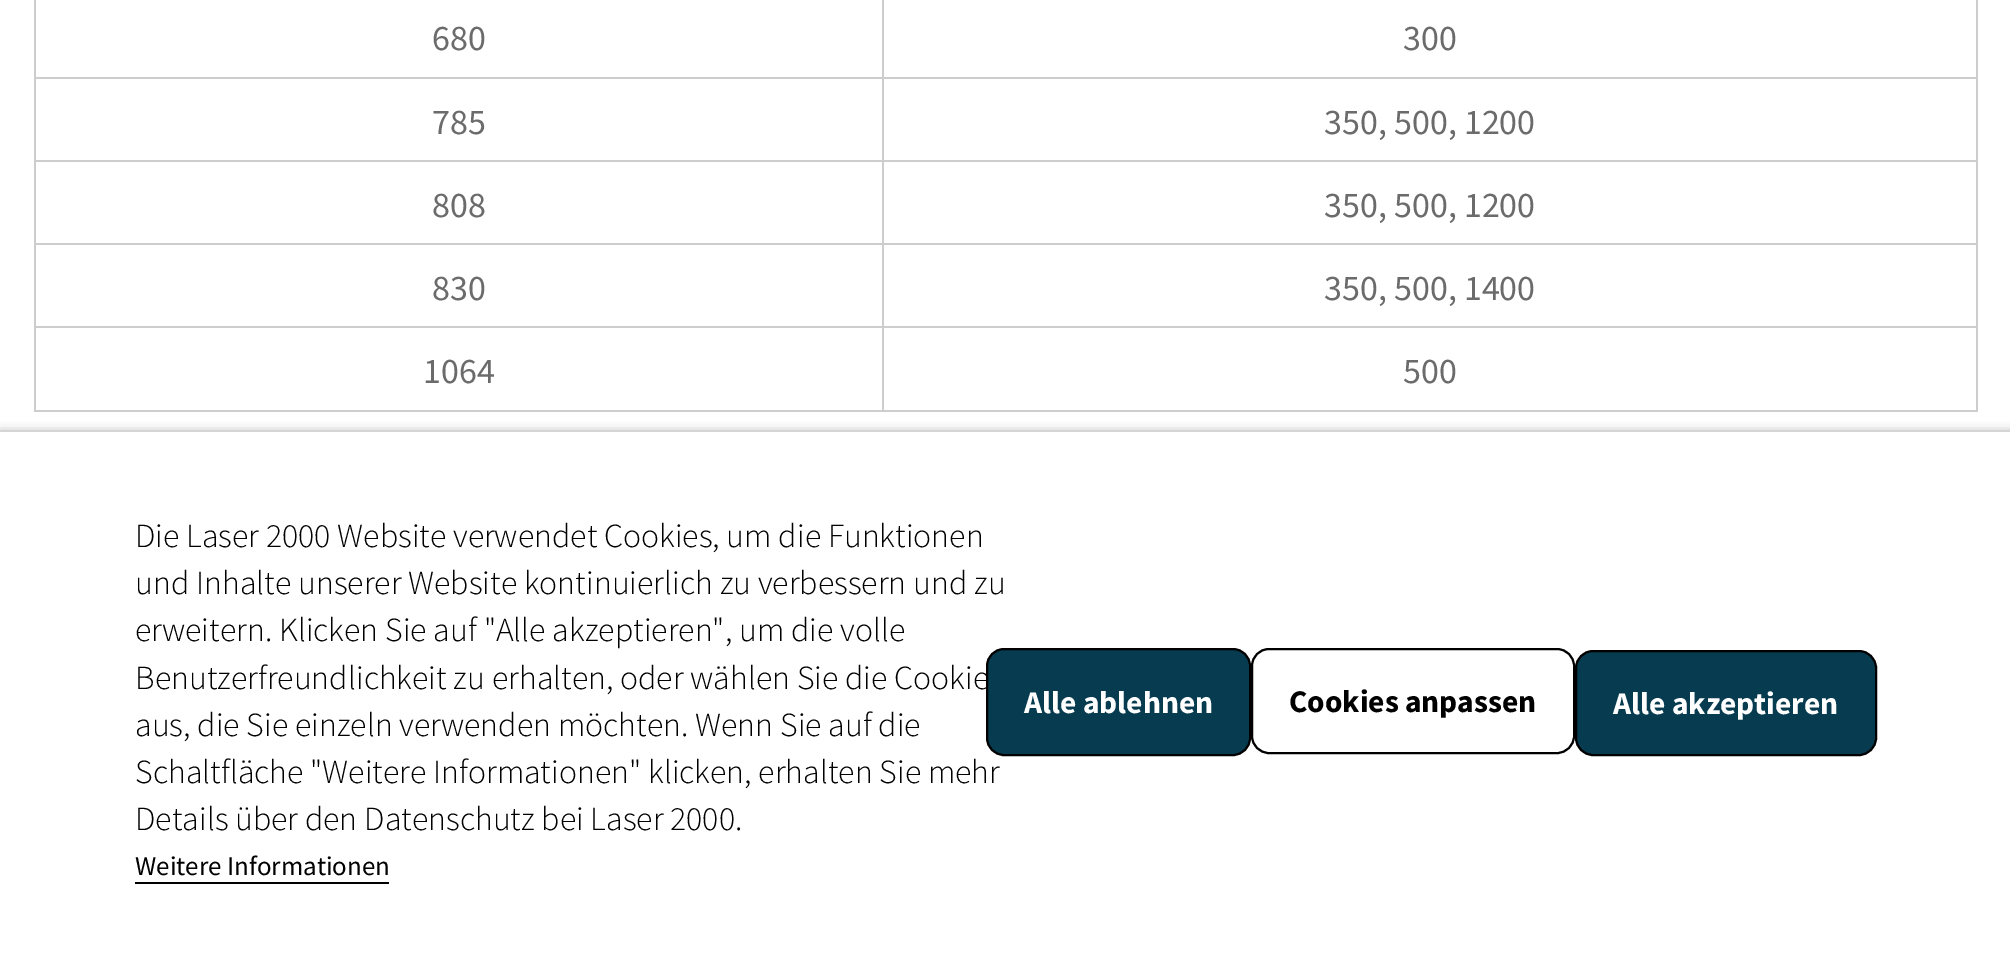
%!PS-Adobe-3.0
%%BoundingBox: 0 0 2010 968
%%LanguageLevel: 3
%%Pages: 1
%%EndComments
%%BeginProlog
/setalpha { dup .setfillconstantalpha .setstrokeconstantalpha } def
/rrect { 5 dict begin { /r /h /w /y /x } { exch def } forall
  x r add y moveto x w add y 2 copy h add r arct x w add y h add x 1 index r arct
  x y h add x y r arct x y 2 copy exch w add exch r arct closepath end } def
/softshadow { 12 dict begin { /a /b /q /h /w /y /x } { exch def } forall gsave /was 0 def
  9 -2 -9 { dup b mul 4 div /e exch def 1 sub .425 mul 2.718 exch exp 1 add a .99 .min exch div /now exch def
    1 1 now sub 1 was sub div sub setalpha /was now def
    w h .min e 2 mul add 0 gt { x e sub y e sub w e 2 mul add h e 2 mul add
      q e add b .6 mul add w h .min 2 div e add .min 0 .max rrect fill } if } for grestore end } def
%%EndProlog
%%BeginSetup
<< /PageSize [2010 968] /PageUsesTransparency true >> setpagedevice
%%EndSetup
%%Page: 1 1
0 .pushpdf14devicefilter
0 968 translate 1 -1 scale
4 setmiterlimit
1 setgray
0 0 2010 968 rectfill
0.804 setgray
1976 0 2 412 rectfill
34 410 1944 2 rectfill
34 0 2 412 rectfill
882 77 1096 2 rectfill
882 160 1096 2 rectfill
882 243 1096 2 rectfill
882 326 1096 2 rectfill
882 326 2 86 rectfill
34 326 850 2 rectfill
882 243 2 86 rectfill
34 243 850 2 rectfill
882 160 2 85 rectfill
34 160 850 2 rectfill
882 77 2 85 rectfill
34 77 850 2 rectfill
882 0 2 79 rectfill
0.439 setgray
0 434 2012 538 0 5.5 1 softshadow
1 setgray
0 432 2010 536 rectfill
0 setgray
135 882 254 2 rectfill
2 setlinewidth
1252 649 322 104 17 rrect stroke
0.027 0.231 0.31 setrgbcolor
1576 651 300 104 17 rrect gsave fill grestore
0 setgray
stroke
/SourceSansPro-Regular [36 0 0 -36 0 0] selectfont
0.42 setgray
432 50 moveto (680) show
1403 50 moveto (300) show
432 134 moveto (785) show
1324 134 moveto (350, 500, 1200) show
432 217 moveto (808) show
1324 217 moveto (350, 500, 1200) show
432 300 moveto (830) show
1324 300 moveto (350, 500, 1400) show
423 383 moveto (1064) show
1403 383 moveto (500) show
/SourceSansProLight-Light [33.75 0 0 -33.75 0 0] selectfont
0 setgray
135 547 moveto (Die Laser 2000 Website verwendet Cookies, um die Funktionen) show
135 594 moveto (und Inhalte unserer Website kontinuierlich zu verbessern und zu) show
135 641 moveto (erweitern. Klicken Sie auf "Alle akzeptieren", um die volle) show
135 689 moveto (Benutzerfreundlichkeit zu erhalten, oder wählen Sie die Cookie) show
135 736 moveto (aus, die Sie einzeln verwenden möchten. Wenn Sie auf die) show
135 783 moveto (Schaltfläche "Weitere Informationen" klicken, erhalten Sie mehr) show
135 830 moveto (Details über den Datenschutz bei Laser 2000.) show
/SourceSansPro-Regular [27 0 0 -27 0 0] selectfont
135 875 moveto (Weitere Informationen) show
0.027 0.231 0.31 setrgbcolor
987 649 263 106 17 rrect gsave fill grestore
0 setgray
stroke
/SourceSansPro-Bold [31.5 0 0 -31.5 0 0] selectfont
1 setgray
1024 713 moveto (Alle ablehnen) show
0 setgray
1289 712 moveto (Cookies anpassen) show
1 setgray
1613 714 moveto (Alle akzeptieren) show
.poppdf14devicefilter showpage
%%EOF
